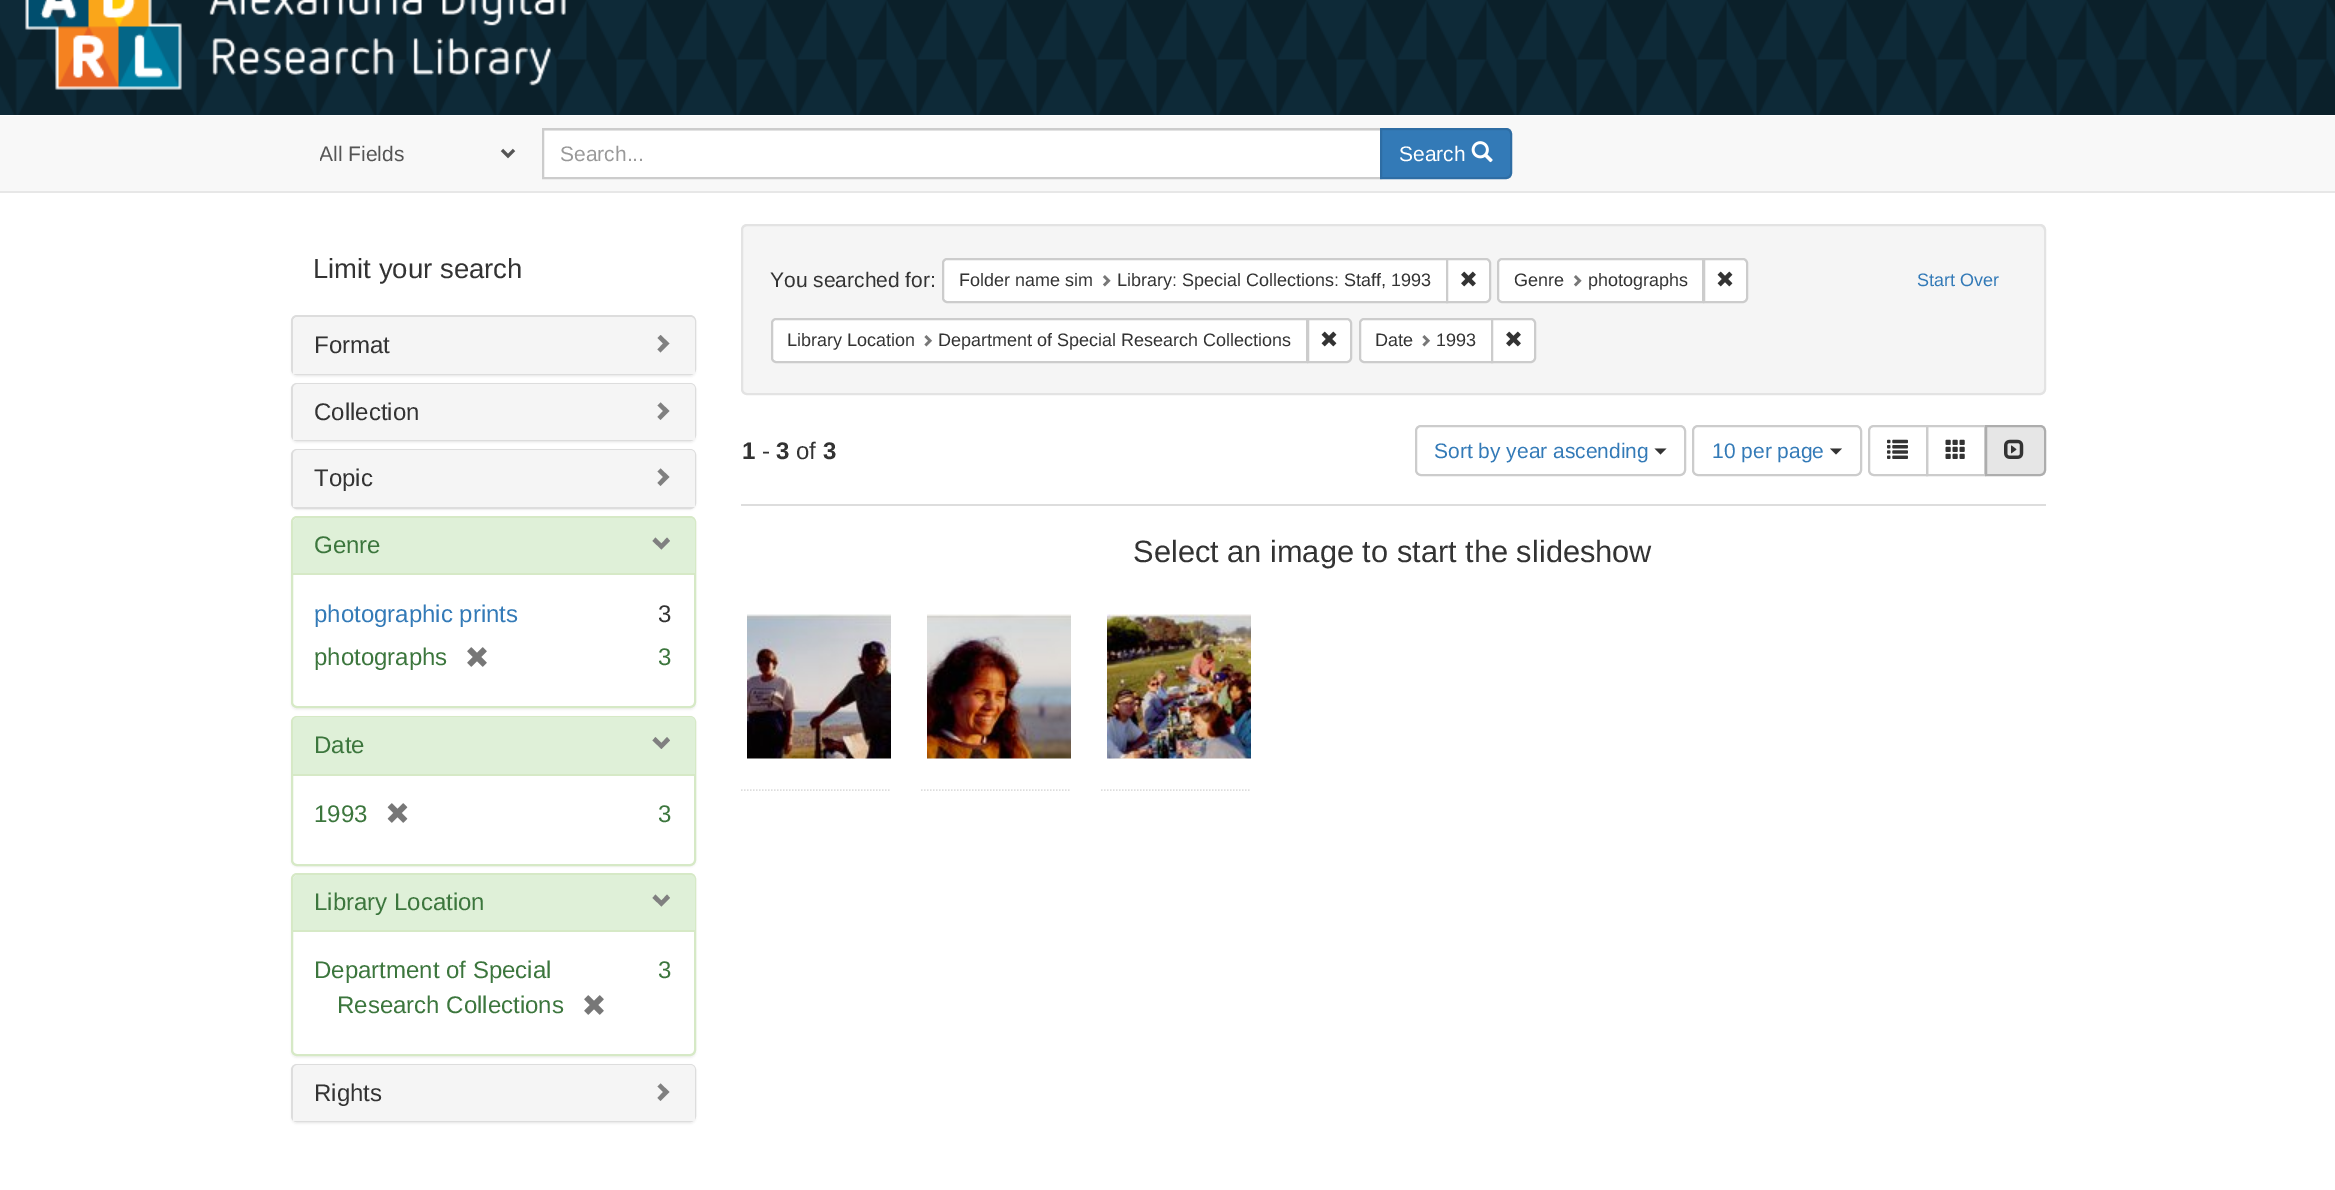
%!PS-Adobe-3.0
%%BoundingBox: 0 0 2335 1190
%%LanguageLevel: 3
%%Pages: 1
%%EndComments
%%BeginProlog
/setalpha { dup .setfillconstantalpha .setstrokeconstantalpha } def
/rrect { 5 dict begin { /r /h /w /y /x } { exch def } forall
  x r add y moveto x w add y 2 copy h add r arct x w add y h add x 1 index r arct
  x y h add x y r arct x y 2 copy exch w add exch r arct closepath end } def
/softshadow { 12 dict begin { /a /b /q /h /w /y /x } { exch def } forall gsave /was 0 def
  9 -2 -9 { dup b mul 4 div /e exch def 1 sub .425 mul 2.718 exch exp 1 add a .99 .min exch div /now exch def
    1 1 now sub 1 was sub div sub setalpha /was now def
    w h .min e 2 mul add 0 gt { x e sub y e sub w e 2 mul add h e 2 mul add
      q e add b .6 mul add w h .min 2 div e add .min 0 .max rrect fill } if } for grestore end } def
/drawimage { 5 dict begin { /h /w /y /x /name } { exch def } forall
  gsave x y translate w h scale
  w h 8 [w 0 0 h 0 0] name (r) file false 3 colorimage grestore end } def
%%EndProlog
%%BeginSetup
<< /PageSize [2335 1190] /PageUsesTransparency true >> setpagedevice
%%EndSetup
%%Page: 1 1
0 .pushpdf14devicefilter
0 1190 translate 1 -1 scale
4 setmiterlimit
1 setgray
0 0 2335 1190 rectfill
(images/1.raw) 0 0 2335 115 drawimage
(images/2.raw) 25 0 541 90 drawimage
0.973 setgray
0 116 2335 75 rectfill
0.906 setgray
0 191 2335 2 rectfill
0.333 setgray
3 setlinewidth
newpath 502 150 moveto 508 156 lineto 514 150 lineto stroke
1 setgray
544 131 836 46 rectfill
0.925 setgray
543 130 837 1 rectfill
0.8 setgray
2 setlinewidth
543 129 838 49 rectstroke
0.2 0.478 0.718 setrgbcolor
newpath 1381 129 moveto 1506 129 lineto 1509 129 1511 131 1511 134 curveto 1511 173 lineto 1511 176 1509 178 1506 178 curveto 1381 178 lineto closepath gsave fill grestore
0.18 0.427 0.643 setrgbcolor
stroke
(images/3.raw) 1471 141 22 22 drawimage
0 setgray
291 317 405 60 6 1 0.05 softshadow
1 setgray
292 316 403 58 5 rrect gsave fill grestore
0.867 setgray
stroke
0.961 setgray
newpath 298 317 moveto 690 317 lineto 693 317 695 319 695 322 curveto 695 374 lineto 293 374 lineto 293 322 lineto 293 319 295 317 298 317 curveto closepath fill
0.502 setgray
newpath 669.5 343.5 moveto 660.5 352.5 lineto 657.5 349.5 lineto 663 343.5 lineto 657.5 338 lineto 660.5 335 lineto closepath fill
0 setgray
291 384 405 59 6 1 0.05 softshadow
0.867 setgray
292 384 403 56 5 rrect stroke
0.961 setgray
newpath 298 384 moveto 690 384 lineto 693 384 695 386 695 389 curveto 695 440 lineto 293 440 lineto 293 389 lineto 293 386 295 384 298 384 curveto closepath fill
0.502 setgray
newpath 669.5 411 moveto 660.5 420 lineto 657.5 417 lineto 663 411 lineto 657.5 405.5 lineto 660.5 402.5 lineto closepath fill
0 setgray
291 450 405 60 6 1 0.05 softshadow
0.867 setgray
292 450 403 58 5 rrect stroke
0.961 setgray
newpath 298 450 moveto 690 450 lineto 693 450 695 452 695 455 curveto 695 507 lineto 293 507 lineto 293 455 lineto 293 452 295 450 298 450 curveto closepath fill
0.502 setgray
newpath 669.5 477 moveto 660.5 486 lineto 657.5 483 lineto 663 477 lineto 657.5 471.5 lineto 660.5 468.5 lineto closepath fill
0 setgray
291 518 405 192 6 1 0.05 softshadow
1 setgray
292 517 403 190 5 rrect gsave fill grestore
0.839 0.914 0.776 setrgbcolor
stroke
0.875 0.941 0.847 setrgbcolor
newpath 298 518 moveto 690 518 lineto 693 518 695 520 695 523 curveto 695 573 lineto 293 573 lineto 293 523 lineto 293 520 295 518 298 518 curveto closepath fill
0.502 setgray
newpath 670 541 moveto 661.5 549.5 lineto 652.5 541 lineto 655.5 537.5 lineto 661.5 543.5 lineto 667 537.5 lineto closepath fill
0.839 0.914 0.776 setrgbcolor
293 573 402 2 rectfill
(images/4.raw) 467 647 20 20 drawimage
0 setgray
291 717 405 150 6 1 0.05 softshadow
1 setgray
292 717 403 148 5 rrect gsave fill grestore
0.839 0.914 0.776 setrgbcolor
stroke
0.875 0.941 0.847 setrgbcolor
newpath 298 717 moveto 690 717 lineto 693 717 695 719 695 722 curveto 695 774 lineto 293 774 lineto 293 722 lineto 293 719 295 717 298 717 curveto closepath fill
0.502 setgray
newpath 670 740.5 moveto 661.5 749 lineto 652.5 740.5 lineto 655.5 737 lineto 661.5 743 lineto 667 737 lineto closepath fill
0.839 0.914 0.776 setrgbcolor
293 774 402 2 rectfill
(images/5.raw) 387 803 21 20 drawimage
0 setgray
291 875 405 183 6 1 0.05 softshadow
1 setgray
292 874 403 181 5 rrect gsave fill grestore
0.839 0.914 0.776 setrgbcolor
stroke
0.875 0.941 0.847 setrgbcolor
newpath 298 875 moveto 690 875 lineto 693 875 695 877 695 880 curveto 695 930 lineto 293 930 lineto 293 880 lineto 293 877 295 875 298 875 curveto closepath fill
0.502 setgray
newpath 670 898 moveto 661.5 906.5 lineto 652.5 898 lineto 655.5 894.5 lineto 661.5 900.5 lineto 667 894.5 lineto closepath fill
0.839 0.914 0.776 setrgbcolor
293 930 402 2 rectfill
(images/4.raw) 584 995 20 20 drawimage
0 setgray
291 1065 405 59 6 1 0.05 softshadow
0.867 setgray
292 1065 403 56 5 rrect stroke
0.961 setgray
newpath 298 1065 moveto 690 1065 lineto 693 1065 695 1067 695 1070 curveto 695 1121 lineto 293 1121 lineto 293 1070 lineto 293 1067 295 1065 298 1065 curveto closepath fill
0.502 setgray
newpath 669.5 1092 moveto 660.5 1101 lineto 657.5 1098 lineto 663 1092 lineto 657.5 1086.5 lineto 660.5 1083.5 lineto closepath fill
0.961 setgray
741 224 1305 171 6 rrect fill
0.914 setgray
newpath 747 226 moveto 2040 226 lineto 2042 226 2044 229 2044 231 curveto 2044 391 lineto 2045 390 2045 389 2045 388 curveto 2045 230 lineto 2045 227 2043 225 2040 225 curveto 748 225 lineto 746 225 744 226 743 228 curveto 744 227 746 226 747 226 curveto closepath fill
0.89 setgray
742 225 1303 169 5 rrect stroke
1 setgray
newpath 947 259 moveto 1447 259 lineto 1447 302 lineto 947 302 lineto 945 302 943 300 943 298 curveto 943 263 lineto 943 261 945 259 947 259 curveto closepath gsave fill grestore
0.8 setgray
stroke
(images/6.raw) 1102 275 9 12 drawimage
1 setgray
newpath 1447 259 moveto 1486 259 lineto 1488 259 1490 261 1490 263 curveto 1490 298 lineto 1490 300 1488 302 1486 302 curveto 1447 302 lineto closepath gsave fill grestore
0.8 setgray
stroke
(images/7.raw) 1461 271 15 16 drawimage
1 setgray
newpath 1502 259 moveto 1703 259 lineto 1703 302 lineto 1502 302 lineto 1500 302 1498 300 1498 298 curveto 1498 263 lineto 1498 261 1500 259 1502 259 curveto closepath gsave fill grestore
0.8 setgray
stroke
(images/6.raw) 1573 275 9 12 drawimage
1 setgray
newpath 1704 259 moveto 1743 259 lineto 1745 259 1747 261 1747 263 curveto 1747 298 lineto 1747 300 1745 302 1743 302 curveto 1704 302 lineto closepath gsave fill grestore
0.8 setgray
stroke
(images/8.raw) 1717 271 16 16 drawimage
1 setgray
newpath 776 319 moveto 1307 319 lineto 1307 362 lineto 776 362 lineto 774 362 772 360 772 358 curveto 772 323 lineto 772 321 774 319 776 319 curveto closepath gsave fill grestore
0.8 setgray
stroke
(images/9.raw) 924 335 9 12 drawimage
1 setgray
newpath 1308 319 moveto 1347 319 lineto 1349 319 1351 321 1351 323 curveto 1351 358 lineto 1351 360 1349 362 1347 362 curveto 1308 362 lineto closepath gsave fill grestore
0.8 setgray
stroke
(images/8.raw) 1321 331 16 16 drawimage
1 setgray
newpath 1364 319 moveto 1492 319 lineto 1492 362 lineto 1364 362 lineto 1362 362 1360 360 1360 358 curveto 1360 323 lineto 1360 321 1362 319 1364 319 curveto closepath gsave fill grestore
0.8 setgray
stroke
(images/9.raw) 1422 335 9 12 drawimage
1 setgray
newpath 1492 319 moveto 1531 319 lineto 1533 319 1535 321 1535 323 curveto 1535 358 lineto 1535 360 1533 362 1531 362 curveto 1492 362 lineto closepath gsave fill grestore
0.8 setgray
stroke
(images/7.raw) 1506 331 15 16 drawimage
0.867 setgray
741 504 1305 2 rectfill
0.8 setgray
1416 426 269 49 5 rrect stroke
0.2 setgray
newpath 1654.5 448.5 moveto 1666.5 448.5 lineto 1660.5 454.5 lineto closepath fill
0.8 setgray
1693 426 168 49 5 rrect stroke
0.2 setgray
newpath 1830 448.5 moveto 1842 448.5 lineto 1836 454.5 lineto closepath fill
0.8 setgray
newpath 1874 426 moveto 1927 426 lineto 1927 475 lineto 1874 475 lineto 1871 475 1869 473 1869 470 curveto 1869 431 lineto 1869 428 1871 426 1874 426 curveto closepath stroke
(images/10.raw) 1887 439 21 20 drawimage
1927 426 58 49 rectstroke
(images/11.raw) 1945 439 20 20 drawimage
0.902 setgray
newpath 1986 426 moveto 2040 426 lineto 2043 426 2045 428 2045 431 curveto 2045 470 lineto 2045 473 2043 475 2040 475 curveto 1986 475 lineto closepath gsave fill grestore
0.678 setgray
stroke
(images/12.raw) 2004 439 20 20 drawimage
0.867 setgray
1.5 setlinewidth
[1.5 1.5] 0 setdash
newpath 741 790 moveto 891 790 lineto stroke
(images/13.raw) 747 614 144 145 drawimage
newpath 921 790 moveto 1071 790 lineto stroke
(images/14.raw) 927 614 144 145 drawimage
newpath 1101 790 moveto 1251 790 lineto stroke
(images/15.raw) 1107 614 144 145 drawimage
gsave
320 140 177 27 rectclip
/LiberationSans-Regular [21 0 0 -21 0 0] selectfont
0.333 setgray
319 161 moveto (All Fields) show
grestore
/LiberationSans-Regular [21 0 0 -21 0 0] selectfont
0.6 setgray
560 161 moveto (Search...) show
1 setgray
1399 161 moveto (Search) show
/LiberationSans-Regular [27.5 0 0 -27.5 0 0] selectfont
0.2 setgray
313 278 moveto (Limit your search) show
/LiberationSans-Regular [24 0 0 -24 0 0] selectfont
314 353 moveto (Format) show
314 420 moveto (Collection) show
314 486 moveto (Topic) show
0.235 0.463 0.239 setrgbcolor
314 553 moveto (Genre) show
0.2 0.478 0.718 setrgbcolor
314 622 moveto (photographic prints) show
0.2 setgray
658 622 moveto (3) show
0.235 0.463 0.239 setrgbcolor
314 665 moveto (photographs) show
658 665 moveto (3) show
314 753 moveto (Date) show
314 822 moveto (1993) show
658 822 moveto (3) show
314 910 moveto (Library Location) show
314 978 moveto (Department of Special) show
337 1013 moveto (Research Collections) show
658 978 moveto (3) show
0.2 setgray
314 1101 moveto (Rights) show
/LiberationSans-Regular [21 0 0 -21 0 0] selectfont
770 287 moveto (You searched for:) show
/LiberationSans-Regular [18 0 0 -18 0 0] selectfont
959 286 moveto (Folder name sim) show
1117 286 moveto (Library: Special Collections: Staff, 1993) show
1514 286 moveto (Genre) show
1588 286 moveto (photographs) show
0.2 0.478 0.718 setrgbcolor
1917 286 moveto (Start Over) show
0.2 setgray
787 346 moveto (Library Location) show
938 346 moveto (Department of Special Research Collections) show
1375 346 moveto (Date) show
1436 346 moveto (1993) show
/LiberationSans-Bold [24 0 0 -24 0 0] selectfont
742 459 moveto (1) show
/LiberationSans-Regular [24 0 0 -24 0 0] selectfont
762 459 moveto (-) show
/LiberationSans-Bold [24 0 0 -24 0 0] selectfont
776 459 moveto (3) show
/LiberationSans-Regular [24 0 0 -24 0 0] selectfont
796 459 moveto (of) show
/LiberationSans-Bold [24 0 0 -24 0 0] selectfont
823 459 moveto (3) show
/LiberationSans-Regular [21 0 0 -21 0 0] selectfont
0.2 0.478 0.718 setrgbcolor
1434 458 moveto (Sort by year ascending) show
1712 458 moveto (10 per page) show
/LiberationSans-Regular [30.8 0 0 -30.8 0 0] selectfont
0.2 setgray
1133 562 moveto (Select an image to start the slideshow) show
.poppdf14devicefilter showpage
%%EOF
